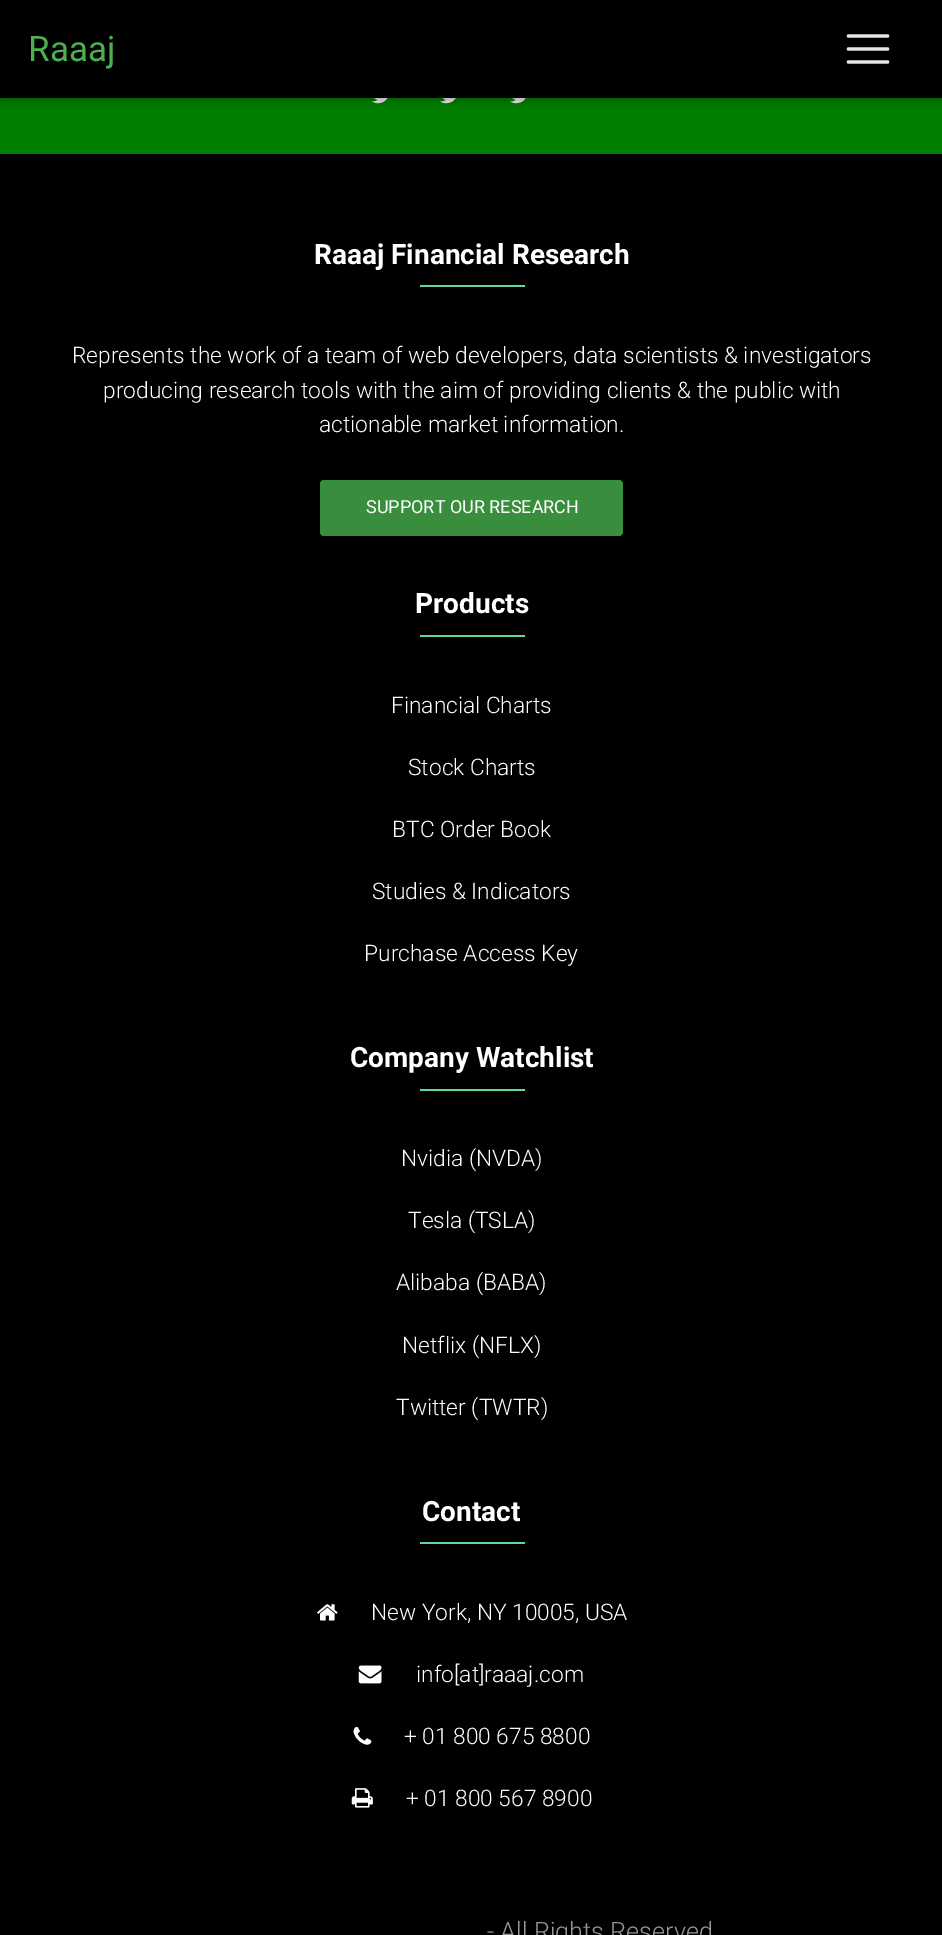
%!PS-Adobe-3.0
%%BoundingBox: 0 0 942 1935
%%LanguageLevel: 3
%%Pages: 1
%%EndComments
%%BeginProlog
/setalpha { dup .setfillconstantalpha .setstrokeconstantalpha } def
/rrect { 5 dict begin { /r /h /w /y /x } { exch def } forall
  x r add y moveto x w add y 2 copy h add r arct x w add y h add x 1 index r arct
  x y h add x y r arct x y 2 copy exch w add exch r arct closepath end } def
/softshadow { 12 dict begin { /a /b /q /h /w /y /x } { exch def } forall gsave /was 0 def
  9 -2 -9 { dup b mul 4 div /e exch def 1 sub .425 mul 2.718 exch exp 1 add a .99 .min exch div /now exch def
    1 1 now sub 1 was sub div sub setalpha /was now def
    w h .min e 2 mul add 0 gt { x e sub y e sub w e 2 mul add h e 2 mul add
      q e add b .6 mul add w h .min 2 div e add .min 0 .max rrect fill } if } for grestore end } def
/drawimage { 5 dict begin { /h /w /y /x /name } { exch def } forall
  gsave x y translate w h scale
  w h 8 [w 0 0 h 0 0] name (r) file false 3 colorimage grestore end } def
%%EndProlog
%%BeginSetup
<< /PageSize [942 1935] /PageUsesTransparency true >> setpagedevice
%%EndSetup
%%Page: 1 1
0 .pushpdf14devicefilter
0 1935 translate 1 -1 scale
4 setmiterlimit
0 setgray
0 0 942 1935 rectfill
0 0.502 0 setrgbcolor
0 98 942 56 rectfill
(images/1.raw) 371 98 17 6 drawimage
(images/2.raw) 440 98 16 6 drawimage
(images/3.raw) 510 98 16 6 drawimage
0 setgray
0 4 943 98 0 9 0.12 softshadow
0 4 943 98 0 4.5 0.16 softshadow
0.902 setgray
3.3 setlinewidth
1 setlinecap
newpath 848.5 36 moveto 887.5 36 lineto 848.5 49 moveto 887.5 49 lineto 848.5 62 moveto 887.5 62 lineto stroke
0.373 0.847 0.616 setrgbcolor
420 285 105 2 rectfill
0.22 0.557 0.235 setrgbcolor
320 480 303 56 4 rrect fill
0.373 0.847 0.616 setrgbcolor
420 635 105 2 rectfill
420 1089 105 2 rectfill
420 1542 105 2 rectfill
(images/4.raw) 317 1604 21 17 drawimage
(images/5.raw) 358 1665 24 19 drawimage
(images/6.raw) 353 1726 19 19 drawimage
(images/7.raw) 351 1788 22 20 drawimage
/Roboto-Regular [35 0 0 -35 0 0] selectfont
0.298 0.686 0.314 setrgbcolor
28 61 moveto (Raaaj) show
/Roboto-Bold [28 0 0 -28 0 0] selectfont
1 setgray
314 264 moveto (Raaaj Financial Research) show
/Roboto-Light [22.75 0 0 -22.75 0 0] selectfont
72 363 moveto (Represents the work of a team of web developers, data scientists & investigators) show
103 398 moveto (producing research tools with the aim of providing clients & the public with) show
319 432 moveto (actionable market information.) show
/Roboto-Regular [18 0 0 -18 0 0] selectfont
366 513 moveto (SUPPORT OUR RESEARCH) show
/Roboto-Bold [28 0 0 -28 0 0] selectfont
415 613 moveto (Products) show
/Roboto-Light [22.75 0 0 -22.75 0 0] selectfont
391 713 moveto (Financial Charts) show
408 775 moveto (Stock Charts) show
392 837 moveto (BTC Order Book) show
372 899 moveto (Studies & Indicators) show
364 961 moveto (Purchase Access Key) show
/Roboto-Bold [28 0 0 -28 0 0] selectfont
350 1067 moveto (Company Watchlist) show
/Roboto-Light [22.75 0 0 -22.75 0 0] selectfont
401 1166 moveto (Nvidia \(NVDA\)) show
408 1228 moveto (Tesla \(TSLA\)) show
396 1290 moveto (Alibaba \(BABA\)) show
402 1353 moveto (Netflix \(NFLX\)) show
396 1415 moveto (Twitter \(TWTR\)) show
/Roboto-Bold [28 0 0 -28 0 0] selectfont
422 1521 moveto (Contact) show
/Roboto-Light [22.75 0 0 -22.75 0 0] selectfont
371 1620 moveto (New York, NY 10005, USA) show
416 1682 moveto (info[at]raaaj.com) show
404 1744 moveto (+ 01 800 675 8800) show
406 1806 moveto (+ 01 800 567 8900) show
/Roboto-Light [25.25 0 0 -25.25 0 0] selectfont
0.6 setgray
487 1940 moveto (- All Rights Reserved) show
.poppdf14devicefilter showpage
%%EOF
